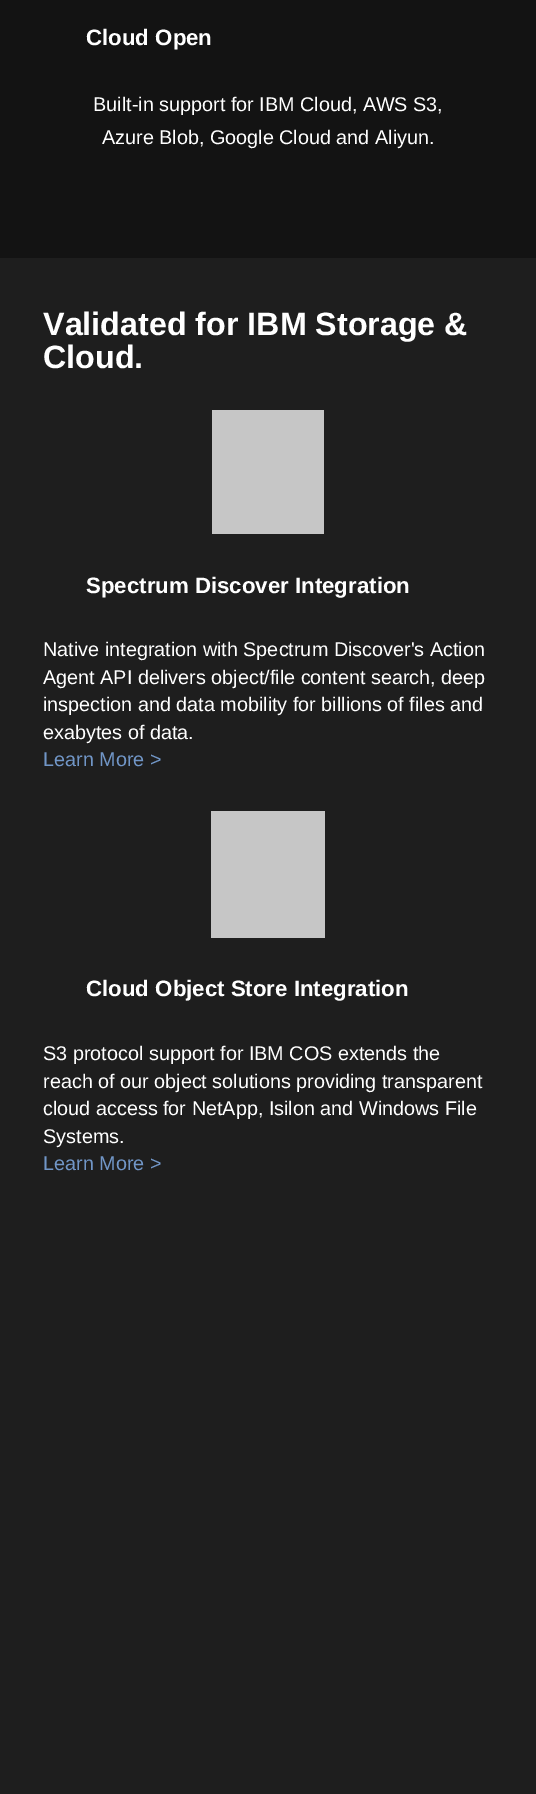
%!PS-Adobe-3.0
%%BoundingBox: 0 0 536 1794
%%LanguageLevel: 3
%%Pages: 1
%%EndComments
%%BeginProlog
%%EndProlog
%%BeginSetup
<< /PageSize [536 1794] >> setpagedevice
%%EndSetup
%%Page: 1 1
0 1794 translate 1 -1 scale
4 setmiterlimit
0.075 setgray
0 0 536 1794 rectfill
0.118 setgray
0 258 536 1536 rectfill
0.776 setgray
212 410 112 124 rectfill
211 811 114 127 rectfill
/LiberationSans-Bold [22.25 0 0 -22.25 0 0] selectfont
1 setgray
86 45 moveto (Cloud Open) show
/LiberationSans-Regular [19.8 0 0 -19.8 0 0] selectfont
93 111 moveto (Built-in support for IBM Cloud, AWS S3,) show
102 144 moveto (Azure Blob, Google Cloud and Aliyun.) show
/LiberationSans-Bold [32.25 0 0 -32.25 0 0] selectfont
43 335 moveto (Validated for IBM Storage &) show
43 368 moveto (Cloud.) show
/LiberationSans-Bold [22.25 0 0 -22.25 0 0] selectfont
86 593 moveto (Spectrum Discover Integration) show
/LiberationSans-Regular [19.8 0 0 -19.8 0 0] selectfont
43 656 moveto (Native integration with Spectrum Discover's Action) show
43 684 moveto (Agent API delivers object/file content search, deep) show
43 711 moveto (inspection and data mobility for billions of files and) show
43 739 moveto (exabytes of data.) show
0.443 0.588 0.78 setrgbcolor
43 766 moveto (Learn More >) show
/LiberationSans-Bold [22.25 0 0 -22.25 0 0] selectfont
1 setgray
86 996 moveto (Cloud Object Store Integration) show
/LiberationSans-Regular [19.8 0 0 -19.8 0 0] selectfont
43 1060 moveto (S3 protocol support for IBM COS extends the) show
43 1088 moveto (reach of our object solutions providing transparent) show
43 1115 moveto (cloud access for NetApp, Isilon and Windows File) show
43 1143 moveto (Systems.) show
0.443 0.588 0.78 setrgbcolor
43 1170 moveto (Learn More >) show
showpage
%%EOF
